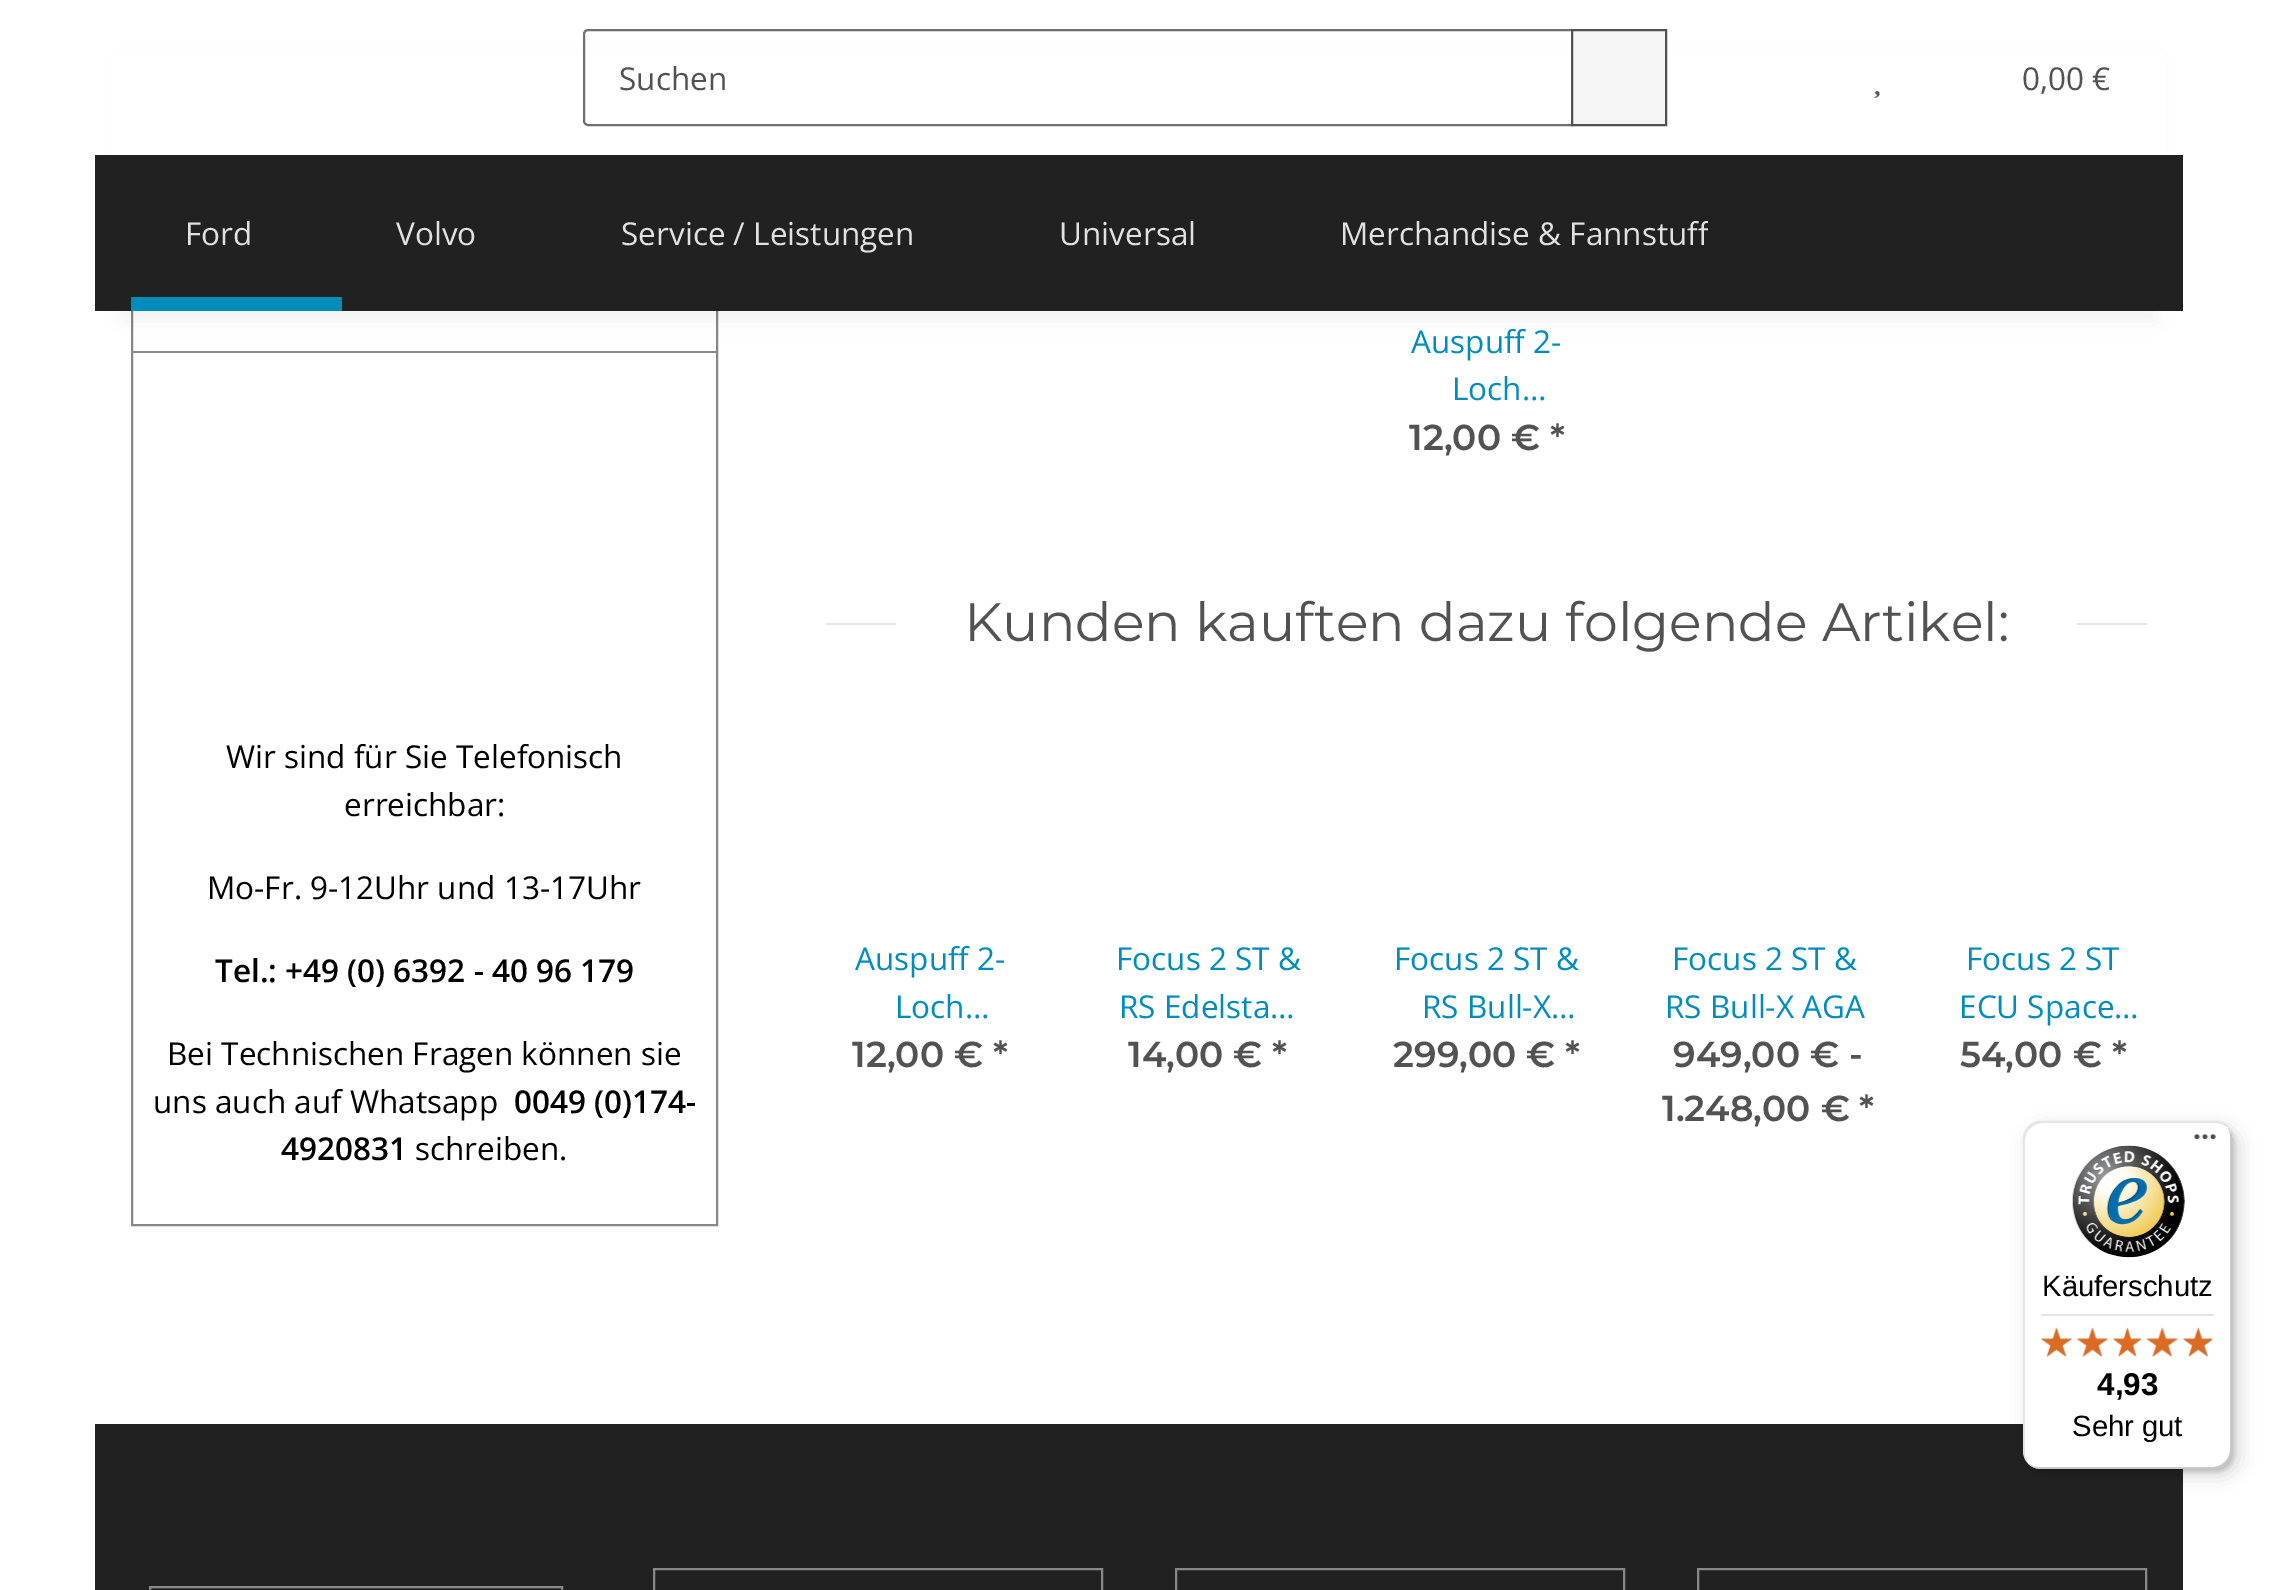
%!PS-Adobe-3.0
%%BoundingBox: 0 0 2276 1590
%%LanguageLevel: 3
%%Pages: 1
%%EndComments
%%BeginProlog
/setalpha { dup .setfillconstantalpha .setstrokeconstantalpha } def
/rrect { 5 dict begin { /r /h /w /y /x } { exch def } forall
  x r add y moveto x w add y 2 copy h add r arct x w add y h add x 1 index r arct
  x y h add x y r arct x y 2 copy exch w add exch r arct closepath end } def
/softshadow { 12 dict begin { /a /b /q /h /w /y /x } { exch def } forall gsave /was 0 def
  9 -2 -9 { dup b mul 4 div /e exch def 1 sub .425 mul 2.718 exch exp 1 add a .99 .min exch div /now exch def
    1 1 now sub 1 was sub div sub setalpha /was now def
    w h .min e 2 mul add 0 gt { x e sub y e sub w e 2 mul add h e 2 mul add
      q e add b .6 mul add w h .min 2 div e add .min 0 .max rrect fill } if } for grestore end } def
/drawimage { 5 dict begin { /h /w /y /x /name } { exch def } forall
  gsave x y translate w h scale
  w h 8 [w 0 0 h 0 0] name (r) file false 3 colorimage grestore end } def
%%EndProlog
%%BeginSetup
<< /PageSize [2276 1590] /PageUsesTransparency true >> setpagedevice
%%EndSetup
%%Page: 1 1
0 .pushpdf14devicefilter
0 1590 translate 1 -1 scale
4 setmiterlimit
1 setgray
0 0 2276 1590 rectfill
0.533 setgray
2 setlinewidth
132 271 585 954 rectstroke
0 setgray
122 63 2034 257 0 10 0.06 softshadow
1 setgray
112 53 2054 102 rectfill
0.439 setgray
newpath 588 30 moveto 1572 30 lineto 1572 125 lineto 588 125 lineto 586 125 584 123 584 121 curveto 584 34 lineto 584 32 586 30 588 30 curveto closepath stroke
0.961 setgray
newpath 1572 30 moveto 1666 30 lineto 1666 125 lineto 1572 125 lineto closepath gsave fill grestore
0.322 setgray
stroke
(images/1.raw) 1874 91 6 7 drawimage
0.129 setgray
95 155 2088 156 rectfill
0 0.549 0.729 setrgbcolor
131 297 211 14 rectfill
0.533 setgray
133 351 583 2 rectfill
0.902 setgray
826 623 70 2 rectfill
2077 623 70 2 rectfill
0.129 setgray
95 1424 2088 166 rectfill
0 setgray
2030 1127 209 349 18 9 0.15 softshadow
2025 1123 209 349 18 2 0.15 softshadow
1 setgray
2023 1121 209 348 18 rrect fill
0.1 setalpha
0 setgray
newpath 2043 1123 moveto 2216 1123 lineto 2220 1123 2224 1125 2228 1127 curveto 2224 1123 2219 1121 2214 1121 curveto 2041 1121 lineto 2031 1121 2023 1129 2023 1139 curveto 2023 1451 lineto 2023 1456 2025 1460 2028 1463 curveto 2026 1460 2025 1457 2025 1454 curveto 2025 1141 lineto 2025 1131 2033 1123 2043 1123 curveto closepath fill
0.2 setalpha
newpath 2029 1464 moveto 2032 1467 2036 1469 2041 1469 curveto 2214 1469 lineto 2224 1469 2232 1461 2232 1451 curveto 2232 1139 lineto 2232 1135 2230 1131 2228 1128 curveto 2229 1130 2230 1133 2230 1136 curveto 2230 1449 lineto 2230 1459 2222 1467 2212 1467 curveto 2038 1467 lineto 2035 1467 2032 1466 2029 1464 curveto closepath fill
0.196 setgray
newpath 2032 1467 moveto 2035 1468 2038 1469 2041 1469 curveto 2214 1469 lineto 2224 1469 2232 1461 2232 1451 curveto 2232 1139 lineto 2232 1136 2231 1133 2230 1130 curveto 2231 1132 2231 1135 2231 1137 curveto 2231 1450 lineto 2231 1460 2223 1468 2213 1468 curveto 2039 1468 lineto 2037 1468 2034 1468 2032 1467 curveto closepath fill
0.3 setalpha
1 setgray
newpath 2028 1464 moveto 2031 1467 2036 1469 2041 1469 curveto 2214 1469 lineto 2224 1469 2232 1461 2232 1451 curveto 2232 1139 lineto 2232 1136 2231 1133 2230 1130 curveto 2231 1132 2231 1135 2231 1137 curveto 2231 1450 lineto 2231 1460 2223 1468 2213 1468 curveto 2040 1468 lineto 2035 1468 2031 1466 2028 1464 curveto closepath fill
1 setalpha
(images/2.raw) 2193 1134 23 6 drawimage
(images/3.raw) 2072 1145 113 113 drawimage
0.898 setgray
2041 1314 173 2 rectfill
(images/9.raw) 2041 1328 31 29 drawimage
(images/4.raw) 2040 1327 32 30 drawimage
(images/10.raw) 2077 1328 31 29 drawimage
(images/5.raw) 2076 1327 33 30 drawimage
(images/11.raw) 2113 1328 29 28 drawimage
(images/6.raw) 2112 1327 30 30 drawimage
(images/12.raw) 2146 1327 32 30 drawimage
(images/7.raw) 2146 1327 32 30 drawimage
(images/13.raw) 2183 1328 31 28 drawimage
(images/8.raw) 2182 1327 30 30 drawimage
0.533 setgray
150 1587 412 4 rectstroke
654 1569 448 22 rectstroke
1176 1569 448 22 rectstroke
1698 1569 448 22 rectstroke
/OpenSans-Regular [31.5 0 0 -31.5 0 0] selectfont
0.322 setgray
619 90 moveto (Suchen) show
2022 90 moveto (0,00 €) show
0.882 setgray
185 245 moveto (Ford) show
396 245 moveto (Volvo) show
621 245 moveto (Service / Leistungen) show
1059 245 moveto (Universal) show
gsave
1341 209 367 48 rectclip
1340 245 moveto (Merchandise & Fannstuff) show
grestore
0 setgray
226 768 moveto (Wir sind für Sie Telefonisch) show
344 816 moveto (erreichbar:) show
207 899 moveto (Mo-Fr. 9-12Uhr und 13-17Uhr) show
/OpenSans-SemiBold [31.5 0 0 -31.5 0 0] selectfont
215 982 moveto (Tel.: +49 \(0\) 6392 - 40 96 179) show
/OpenSans-Regular [31.5 0 0 -31.5 0 0] selectfont
167 1065 moveto (Bei Technischen Fragen können sie) show
153 1113 moveto (uns auch auf Whatsapp) show
/OpenSans-SemiBold [31.5 0 0 -31.5 0 0] selectfont
514 1113 moveto (0049 \(0\)174-) show
281 1160 moveto (4920831) show
/OpenSans-Regular [31.5 0 0 -31.5 0 0] selectfont
415 1160 moveto (schreiben.) show
0 0.549 0.729 setrgbcolor
1411 353 moveto (Auspuff 2-) show
1452 400 moveto (Loch…) show
/Montserrat-SemiBold [36 0 0 -36 0 0] selectfont
0.322 setgray
1409 450 moveto (12,00 € *) show
/Montserrat-Regular [54 0 0 -54 0 0] selectfont
964 641 moveto (Kunden kauften dazu folgende Artikel:) show
/OpenSans-Regular [31.5 0 0 -31.5 0 0] selectfont
0 0.549 0.729 setrgbcolor
855 970 moveto (Auspuff 2-) show
895 1018 moveto (Loch…) show
/Montserrat-SemiBold [36 0 0 -36 0 0] selectfont
0.322 setgray
852 1067 moveto (12,00 € *) show
/OpenSans-Regular [31.5 0 0 -31.5 0 0] selectfont
0 0.549 0.729 setrgbcolor
1116 970 moveto (Focus 2 ST &) show
1119 1018 moveto (RS Edelsta…) show
/Montserrat-SemiBold [36 0 0 -36 0 0] selectfont
0.322 setgray
1128 1067 moveto (14,00 € *) show
/OpenSans-Regular [31.5 0 0 -31.5 0 0] selectfont
0 0.549 0.729 setrgbcolor
1394 970 moveto (Focus 2 ST &) show
1422 1018 moveto (RS Bull-X…) show
/Montserrat-SemiBold [36 0 0 -36 0 0] selectfont
0.322 setgray
1393 1067 moveto (299,00 € *) show
/OpenSans-Regular [31.5 0 0 -31.5 0 0] selectfont
0 0.549 0.729 setrgbcolor
1672 970 moveto (Focus 2 ST &) show
1665 1018 moveto (RS Bull-X AGA) show
/Montserrat-SemiBold [36 0 0 -36 0 0] selectfont
0.322 setgray
1673 1067 moveto (949,00 € -) show
1662 1121 moveto (1.248,00 € *) show
/OpenSans-Regular [31.5 0 0 -31.5 0 0] selectfont
0 0.549 0.729 setrgbcolor
1966 970 moveto (Focus 2 ST) show
1959 1018 moveto (ECU Space…) show
/Montserrat-SemiBold [36 0 0 -36 0 0] selectfont
0.322 setgray
1960 1067 moveto (54,00 € *) show
/LiberationSans-Regular [29.25 0 0 -29.25 0 0] selectfont
0 setgray
2042 1296 moveto (Käuferschutz) show
/LiberationSans-Bold [31.5 0 0 -31.5 0 0] selectfont
2097 1395 moveto (4,93) show
/LiberationSans-Regular [29.25 0 0 -29.25 0 0] selectfont
2072 1436 moveto (Sehr gut) show
.poppdf14devicefilter showpage
%%EOF
